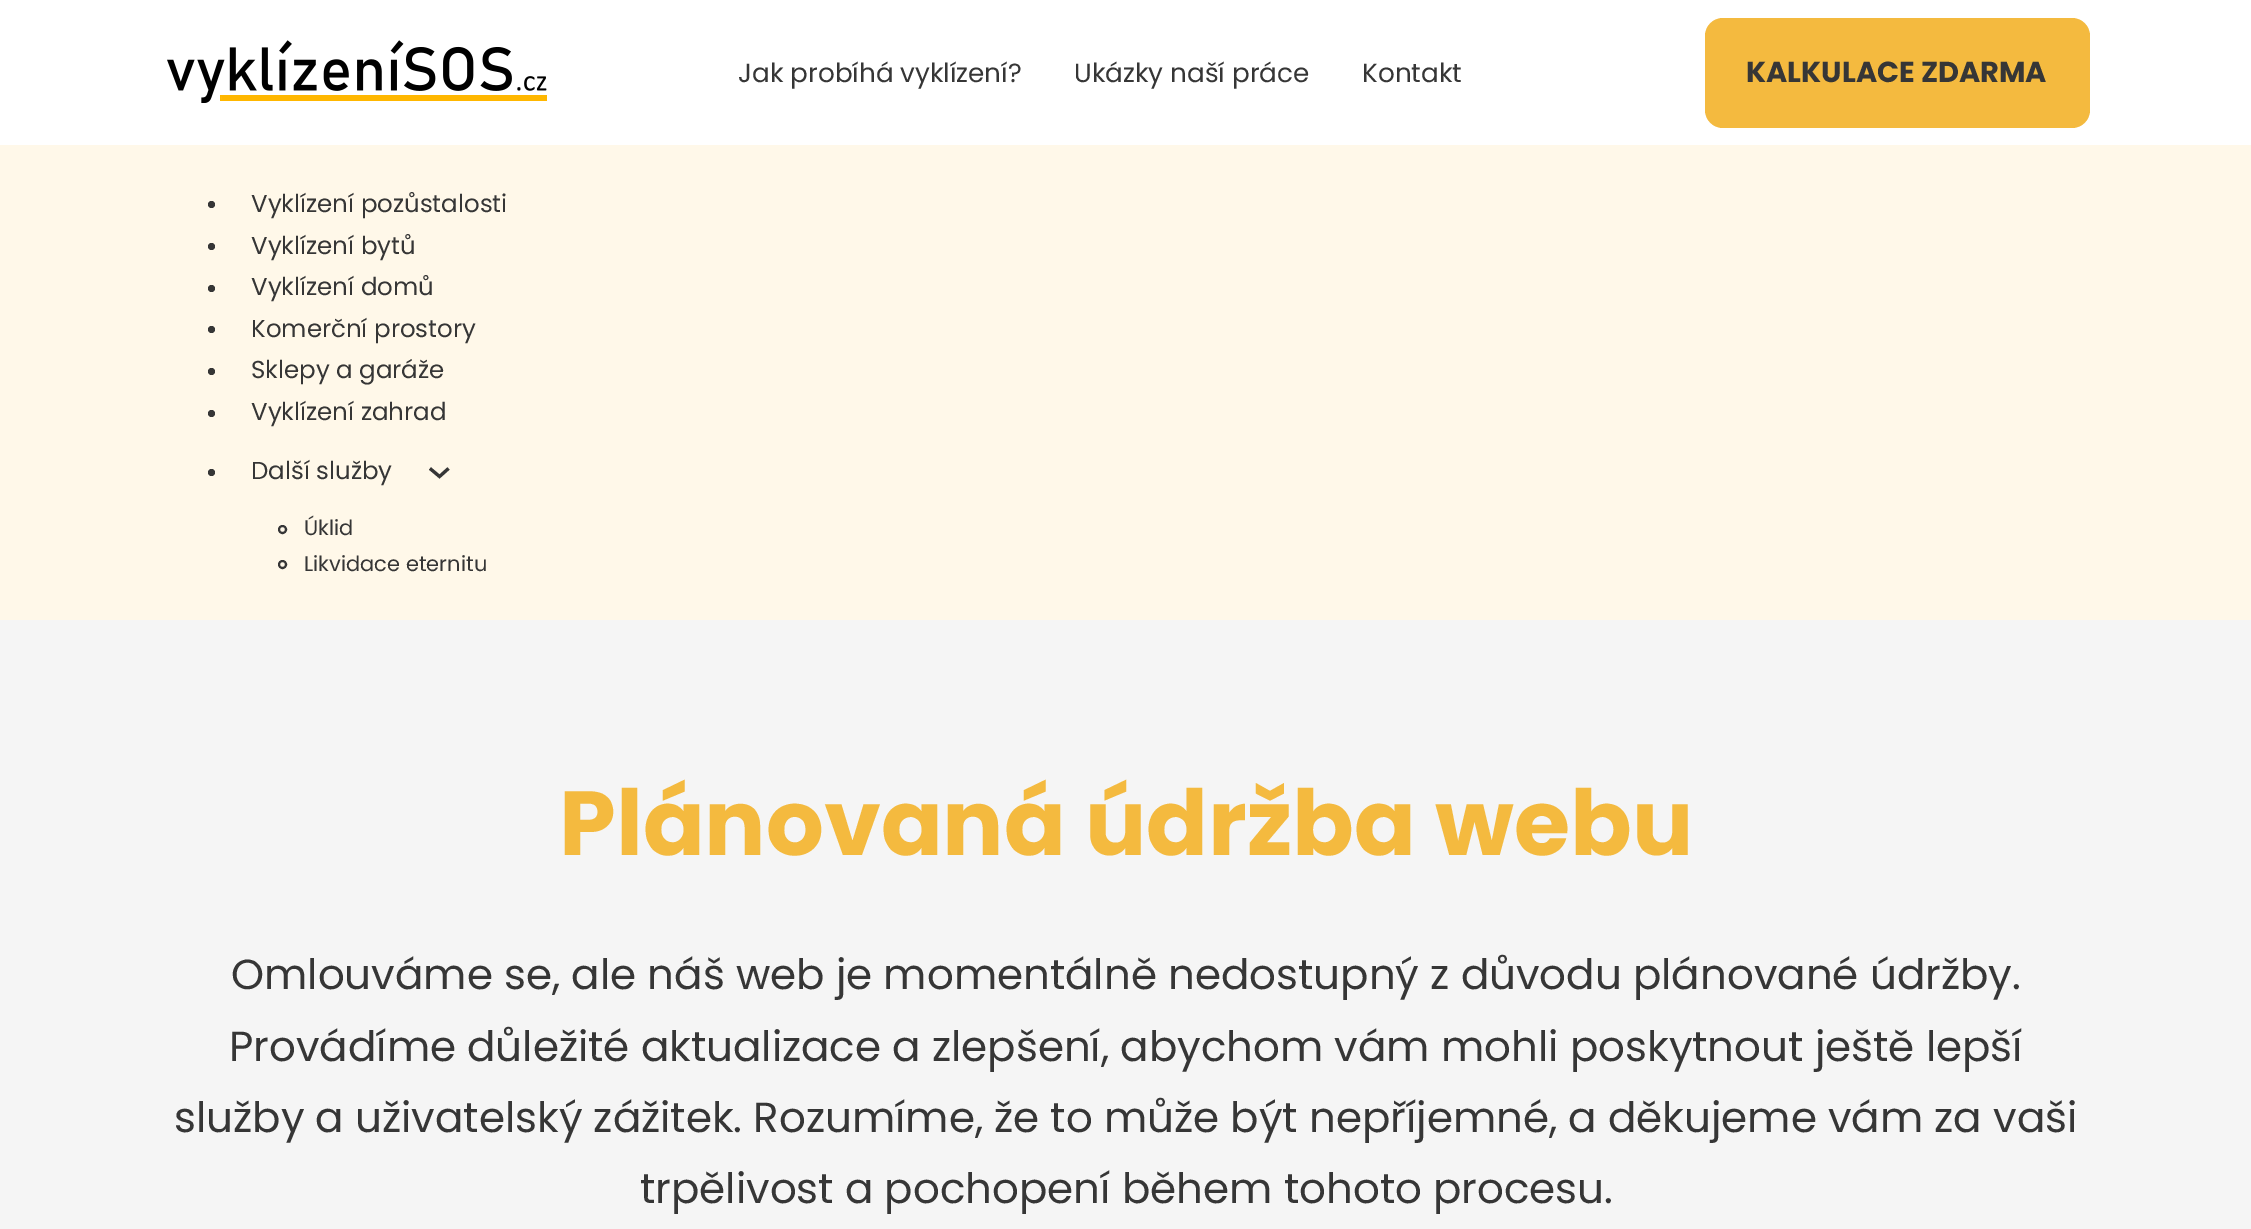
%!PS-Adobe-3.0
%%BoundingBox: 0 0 2251 1229
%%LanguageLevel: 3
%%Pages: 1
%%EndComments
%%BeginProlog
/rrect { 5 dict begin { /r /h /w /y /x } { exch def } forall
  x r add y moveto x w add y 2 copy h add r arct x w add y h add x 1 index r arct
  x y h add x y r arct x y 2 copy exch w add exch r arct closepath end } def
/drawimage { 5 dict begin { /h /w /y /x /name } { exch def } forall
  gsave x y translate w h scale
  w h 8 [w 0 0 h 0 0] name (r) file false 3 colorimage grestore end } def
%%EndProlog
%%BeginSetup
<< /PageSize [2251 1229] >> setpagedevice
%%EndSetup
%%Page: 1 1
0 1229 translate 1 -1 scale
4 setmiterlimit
0.961 setgray
0 0 2251 1229 rectfill
1 setgray
0 0 2251 145 rectfill
(images/1.raw) 167 40 380 63 drawimage
0.957 0.729 0.247 setrgbcolor
1705 18 385 110 18 rrect fill
1 0.973 0.914 setrgbcolor
0 145 2251 475 rectfill
0.212 setgray
newpath 211.5 204.5 3.5 0 360 arc closepath fill
newpath 211.5 246.5 3.5 0 360 arc closepath fill
newpath 211.5 288.5 3.5 0 360 arc closepath fill
newpath 211.5 329.5 3.5 0 360 arc closepath fill
newpath 211.5 371.5 3.5 0 360 arc closepath fill
newpath 211.5 413.5 3.5 0 360 arc closepath fill
newpath 211.5 472.5 3.5 0 360 arc closepath fill
3.1 setlinewidth
newpath 430 468.5 moveto 439.5 476.5 lineto 448.5 468.5 lineto stroke
2 setlinewidth
newpath 282.5 529.5 3.5 0 360 arc closepath stroke
newpath 282.5 564.5 3.5 0 360 arc closepath stroke
/Poppins-Regular [26.25 0 0 -26.25 0 0] selectfont
738 82 moveto (Jak probíhá vyklízení?) show
1074 82 moveto (Ukázky naší práce) show
1362 82 moveto (Kontakt) show
/Poppins-Bold [28.9 0 0 -28.9 0 0] selectfont
1746 82 moveto (KALKULACE ZDARMA) show
/Poppins-Regular [24.5 0 0 -24.5 0 0] selectfont
251 212 moveto (Vyklízení pozůstalosti) show
251 254 moveto (Vyklízení bytů) show
251 295 moveto (Vyklízení domů) show
251 337 moveto (Komerční prostory) show
251 378 moveto (Sklepy a garáže) show
251 420 moveto (Vyklízení zahrad) show
251 479 moveto (Další služby) show
/Poppins-Regular [21 0 0 -21 0 0] selectfont
304 535 moveto (Úklid) show
304 571 moveto (Likvidace eternitu) show
/Poppins-Bold [91 0 0 -91 0 0] selectfont
0.957 0.729 0.247 setrgbcolor
559 855 moveto (Plánovaná údržba webu) show
/Poppins-Regular [42 0 0 -42 0 0] selectfont
0.212 setgray
231 989 moveto (Omlouváme se, ale náš web je momentálně nedostupný z důvodu plánované údržby.) show
229 1061 moveto (Provádíme důležité aktualizace a zlepšení, abychom vám mohli poskytnout ještě lepší) show
174 1132 moveto (služby a uživatelský zážitek. Rozumíme, že to může být nepříjemné, a děkujeme vám za vaši) show
640 1203 moveto (trpělivost a pochopení během tohoto procesu.) show
showpage
%%EOF
